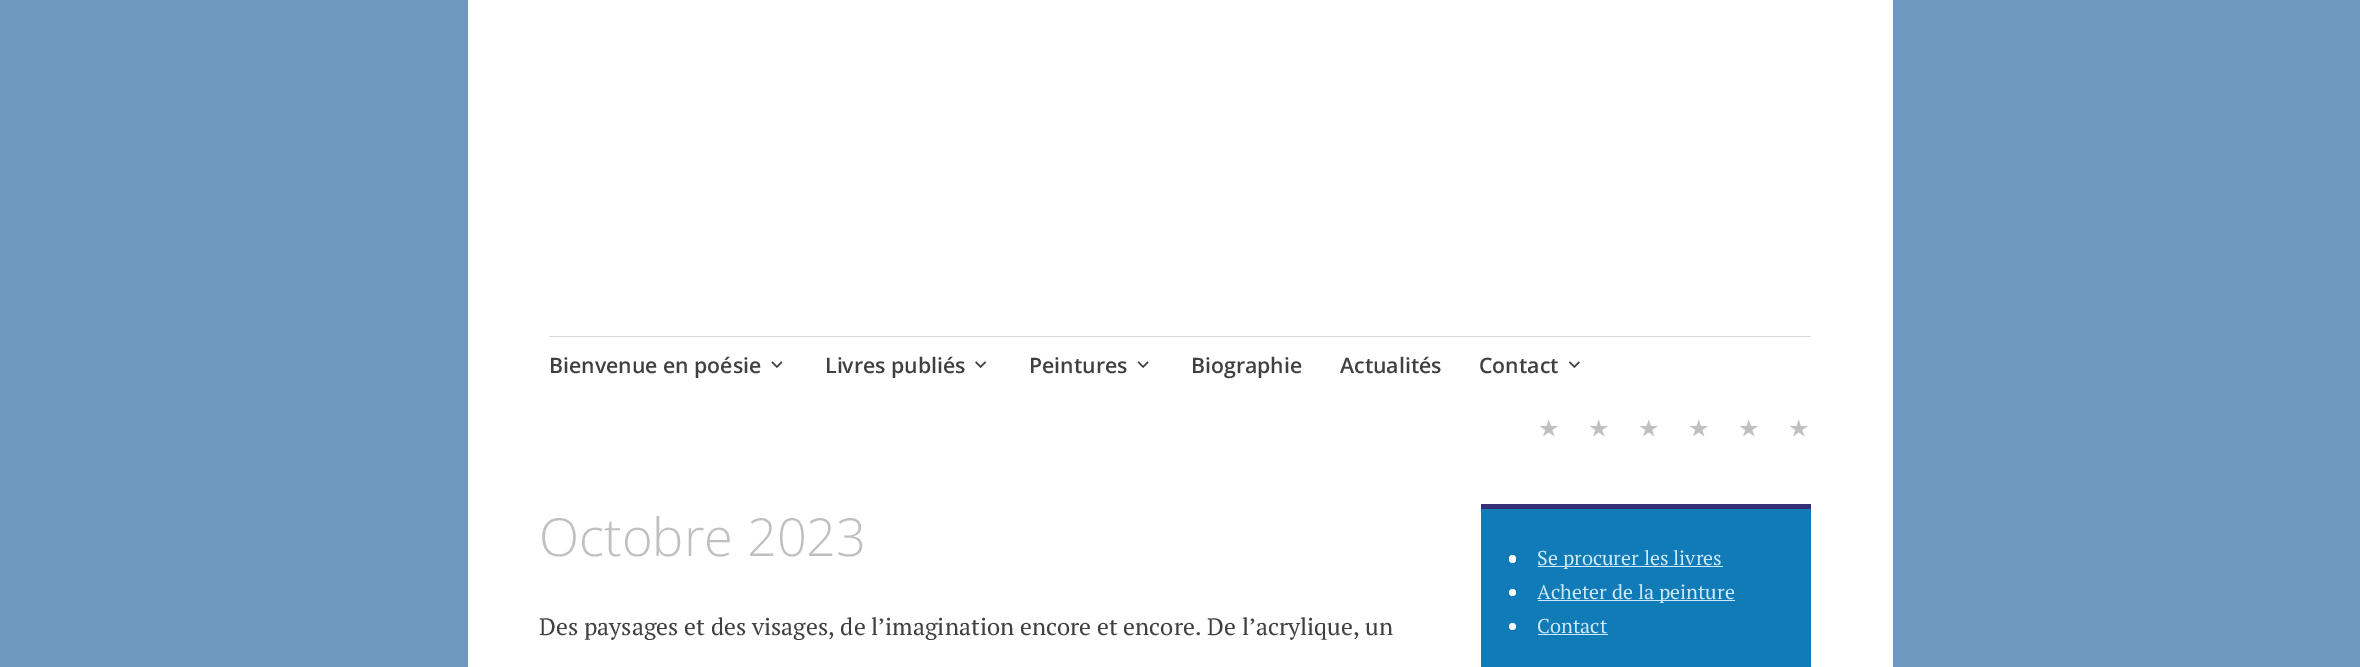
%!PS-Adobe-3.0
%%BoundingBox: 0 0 2360 667
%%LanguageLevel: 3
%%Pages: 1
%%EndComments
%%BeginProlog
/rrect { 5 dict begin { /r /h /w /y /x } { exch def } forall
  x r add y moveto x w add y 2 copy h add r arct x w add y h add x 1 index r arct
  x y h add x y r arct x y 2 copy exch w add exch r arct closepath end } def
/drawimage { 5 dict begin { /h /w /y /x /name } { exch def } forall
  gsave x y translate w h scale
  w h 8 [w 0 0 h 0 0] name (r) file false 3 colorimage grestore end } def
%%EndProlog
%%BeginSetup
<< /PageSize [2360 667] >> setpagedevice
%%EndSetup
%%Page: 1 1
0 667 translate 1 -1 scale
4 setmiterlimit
0.431 0.6 0.749 setrgbcolor
0 0 2360 667 rectfill
1 setgray
468 0 1425 667 rectfill
0.851 setgray
549 336 1262 1 rectfill
(images/1.raw) 771 361 12 7 drawimage
(images/2.raw) 975 361 12 7 drawimage
(images/3.raw) 1137 361 12 7 drawimage
(images/4.raw) 1568 361 12 7 drawimage
(images/5.raw) 1539 419 19 18 drawimage
(images/5.raw) 1589 419 19 18 drawimage
(images/5.raw) 1639 419 19 18 drawimage
(images/5.raw) 1689 419 19 18 drawimage
(images/5.raw) 1739 419 19 18 drawimage
(images/5.raw) 1789 419 19 18 drawimage
0.067 0.482 0.722 setrgbcolor
1481 509 330 158 rectfill
0.212 0.18 0.467 setrgbcolor
1481 504 330 5 rectfill
1 setgray
1509 555 7 8 3.5 rrect fill
0.808 0.918 0.98 setrgbcolor
1538 566 185 1 rectfill
1 setgray
newpath 1512.5 592.5 3.5 0 360 arc closepath fill
0.808 0.918 0.98 setrgbcolor
1538 600 197 1 rectfill
1 setgray
newpath 1512.5 626.5 3.5 0 360 arc closepath fill
0.808 0.918 0.98 setrgbcolor
1538 634 70 1 rectfill
/OpenSans-SemiBold [21.25 0 0 -21.25 0 0] selectfont
0.251 setgray
549 373 moveto (Bienvenue en poésie) show
825 373 moveto (Livres publiés) show
1029 373 moveto (Peintures) show
1191 373 moveto (Biographie) show
1340 373 moveto (Actualités) show
1479 373 moveto (Contact) show
/OpenSans-Light [52.5 0 0 -52.5 0 0] selectfont
0.753 setgray
539 556 moveto (Octobre 2023) show
/PTSerif-Regular [23.75 0 0 -23.75 0 0] selectfont
0.251 setgray
539 635 moveto (Des paysages et des visages, de l’imagination encore et encore. De l’acrylique, un) show
/PTSerif-Regular [20 0 0 -20 0 0] selectfont
0.808 0.918 0.98 setrgbcolor
1537 565 moveto (Se procurer les livres) show
1537 599 moveto (Acheter de la peinture) show
1537 633 moveto (Contact) show
showpage
%%EOF
